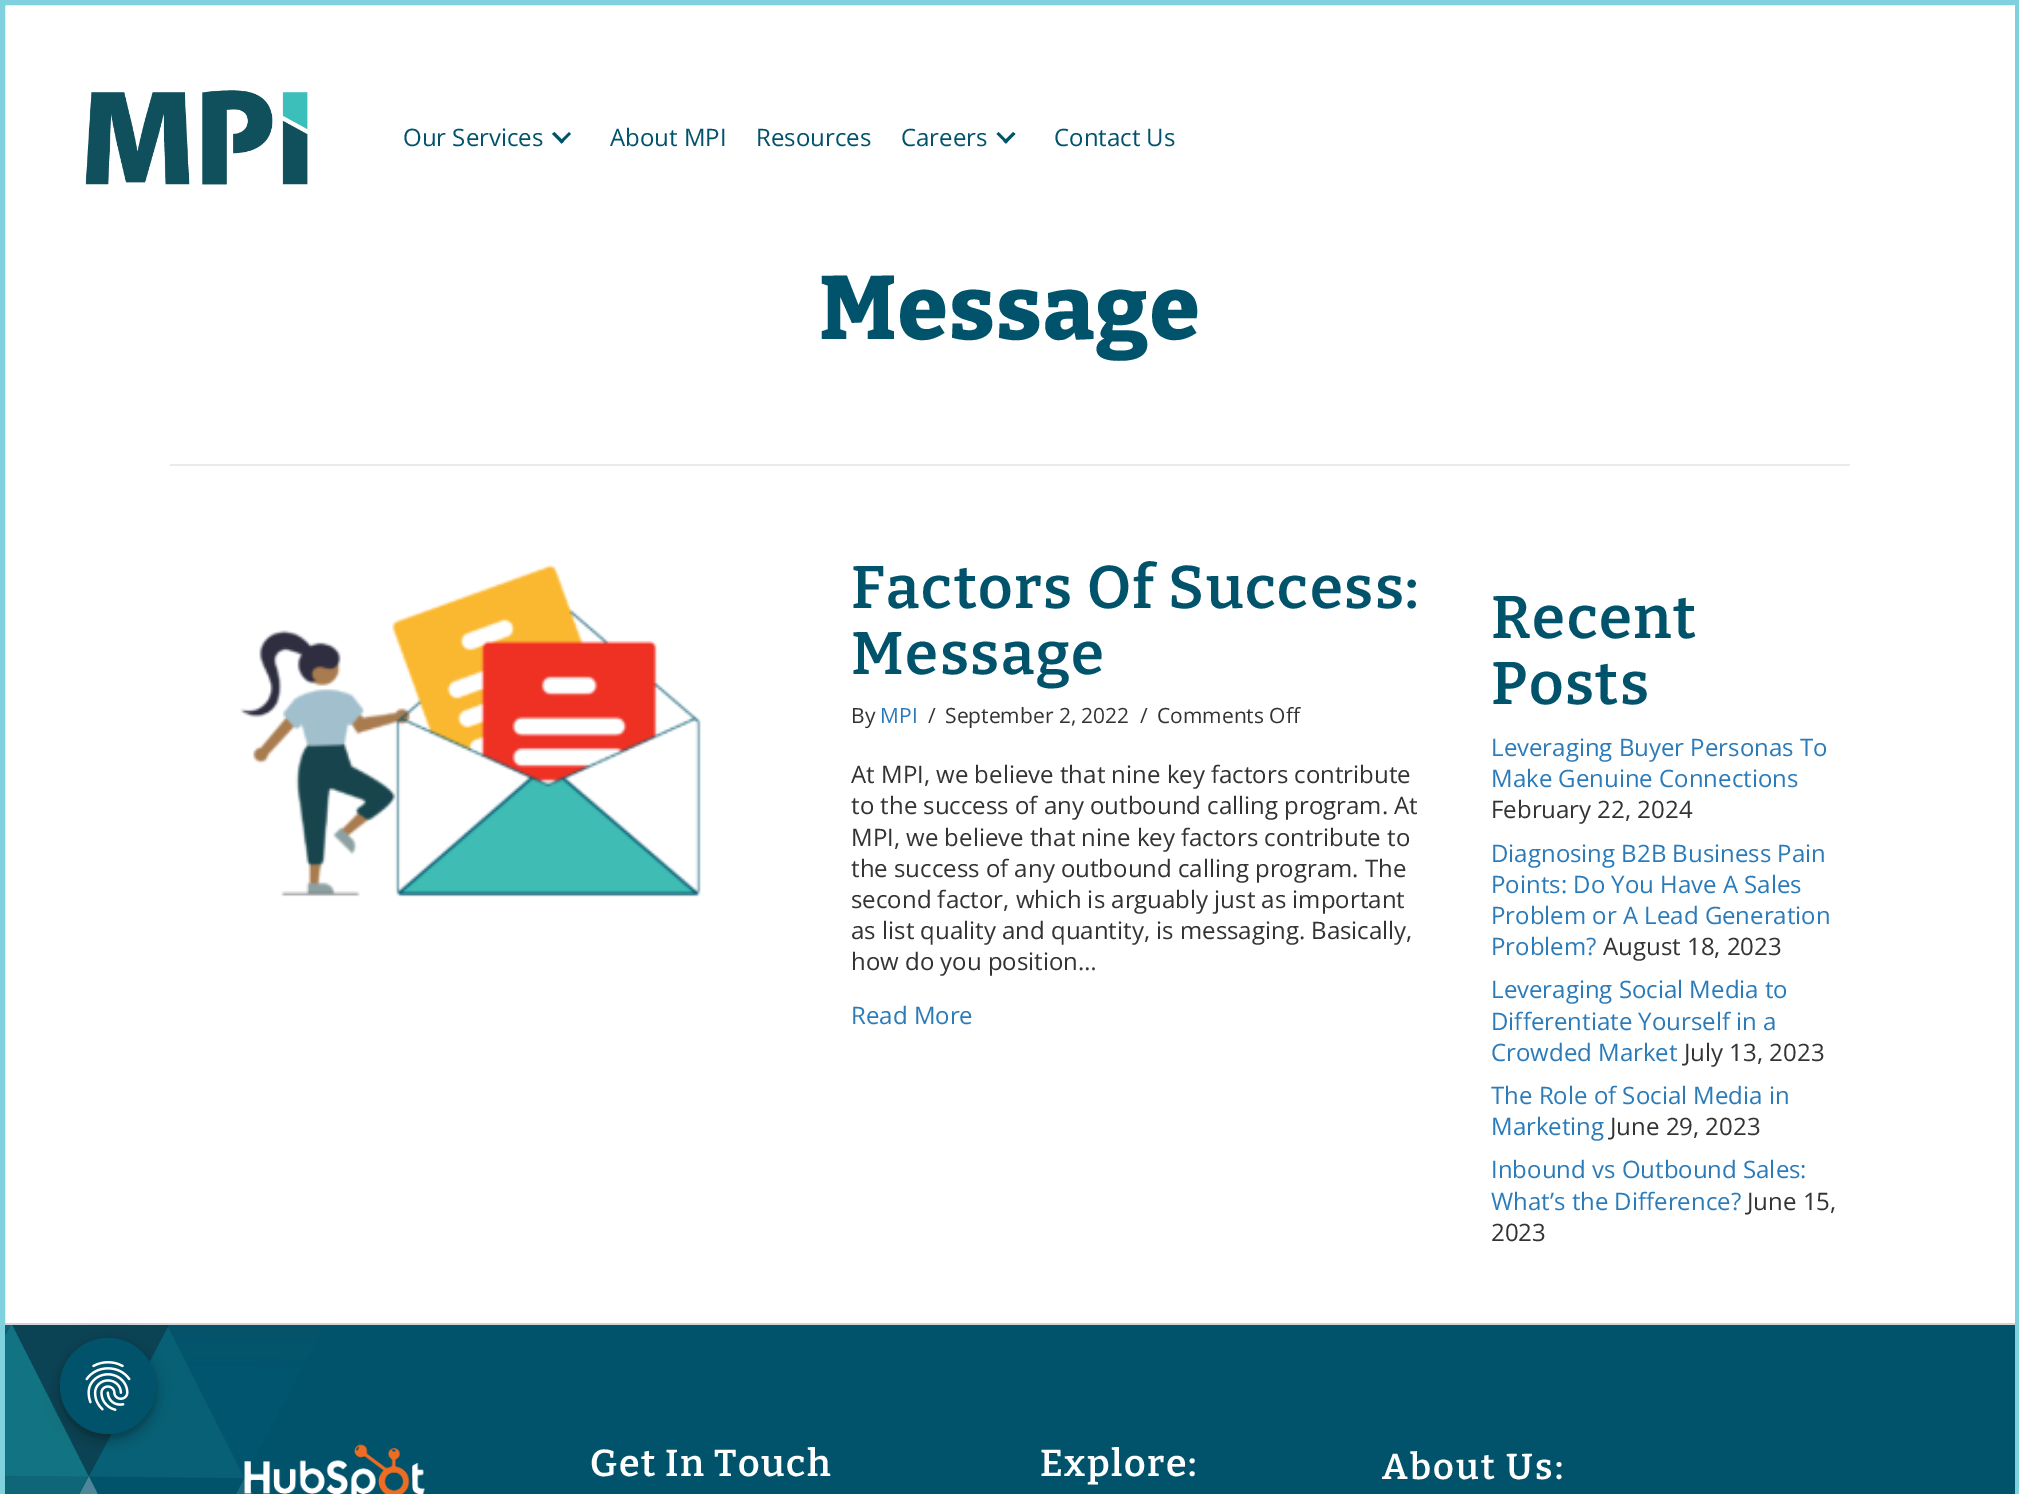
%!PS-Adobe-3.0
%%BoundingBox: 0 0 2019 1494
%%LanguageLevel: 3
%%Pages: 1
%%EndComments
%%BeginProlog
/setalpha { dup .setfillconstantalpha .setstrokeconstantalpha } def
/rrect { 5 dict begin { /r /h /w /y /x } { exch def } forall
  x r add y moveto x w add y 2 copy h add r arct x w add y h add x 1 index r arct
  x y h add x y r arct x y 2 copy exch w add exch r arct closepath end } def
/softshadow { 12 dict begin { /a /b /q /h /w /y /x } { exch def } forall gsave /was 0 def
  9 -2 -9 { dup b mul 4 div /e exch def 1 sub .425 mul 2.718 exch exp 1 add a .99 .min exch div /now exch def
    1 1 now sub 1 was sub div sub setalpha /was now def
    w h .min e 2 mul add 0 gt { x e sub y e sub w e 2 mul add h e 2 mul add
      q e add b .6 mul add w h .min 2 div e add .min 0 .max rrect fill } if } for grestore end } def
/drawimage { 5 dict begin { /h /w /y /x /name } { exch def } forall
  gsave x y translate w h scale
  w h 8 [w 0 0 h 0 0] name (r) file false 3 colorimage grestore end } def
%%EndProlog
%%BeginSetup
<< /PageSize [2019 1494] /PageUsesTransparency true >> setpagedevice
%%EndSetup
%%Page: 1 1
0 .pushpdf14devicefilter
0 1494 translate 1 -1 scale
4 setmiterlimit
1 setgray
0 0 2019 1494 rectfill
0.498 0.82 0.871 setrgbcolor
5 setlinewidth
2.5 2.5 2014 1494 rectstroke
0 0.325 0.42 setrgbcolor
5 1325 2010 169 rectfill
(images/4.raw) 5 1325 319 169 drawimage
0.827 setgray
5 1323 2010 2 rectfill
0 setgray
60 1340 96 96 48 13.5 0.12 softshadow
60 1347 96 96 48 7.5 0.14 softshadow
62 1344 93 93 46.5 4 0.2 softshadow
0 0.325 0.42 setrgbcolor
newpath 108 1386 48 0 360 arc closepath fill
(images/1.raw) 85 1361 46 50 drawimage
(images/2.raw) 85 90 223 95 drawimage
newpath 569 132 moveto 571 134 lineto 561.5 143.5 lineto 559.5 141.5 lineto closepath fill
newpath 554.5 132 moveto 564 141.5 lineto 561.5 143.5 lineto 552 134 lineto closepath fill
newpath 1013 132 moveto 1015.5 134 lineto 1006 143.5 lineto 1003.5 141.5 lineto closepath fill
newpath 998.5 132 moveto 1008 141.5 lineto 1006 143.5 lineto 996.5 134 lineto closepath fill
1 setgray
2014 5 1 1318 rectfill
0.918 setgray
170 464 1680 2 rectfill
(images/3.raw) 240 565 461 332 drawimage
(images/5.raw) 244 1444 181 50 drawimage
/OpenSans-Regular [24 0 0 -24 0 0] selectfont
0 0.325 0.42 setrgbcolor
403 146 moveto (Our Services) show
610 146 moveto (About MPI) show
756 146 moveto (Resources) show
901 146 moveto (Careers) show
1054 146 moveto (Contact Us) show
/Bitter-ExtraBold [90 0 0 -90 0 0] selectfont
819 339 moveto 1.5 0 (Message) ashow
/Bitter-SemiBold [60 0 0 -60 0 0] selectfont
851 608 moveto 1.5 0 (Factors Of Success:) ashow
851 674 moveto 1.5 0 (Message) ashow
/OpenSans-Regular [21 0 0 -21 0 0] selectfont
0.2 setgray
851 723 moveto (By) show
0.169 0.482 0.725 setrgbcolor
880 723 moveto (MPI) show
0.2 setgray
928 723 moveto (/) show
945 723 moveto (September 2, 2022) show
1140 723 moveto (/) show
1157 723 moveto (Comments Off) show
/OpenSans-Regular [24 0 0 -24 0 0] selectfont
851 783 moveto (At MPI, we believe that nine key factors contribute) show
851 814 moveto (to the success of any outbound calling program. At) show
851 846 moveto (MPI, we believe that nine key factors contribute to) show
851 877 moveto (the success of any outbound calling program. The) show
851 908 moveto (second factor, which is arguably just as important) show
851 939 moveto (as list quality and quantity, is messaging. Basically,) show
851 970 moveto (how do you position…) show
0.169 0.482 0.725 setrgbcolor
851 1024 moveto (Read More) show
/Bitter-SemiBold [60 0 0 -60 0 0] selectfont
0 0.325 0.42 setrgbcolor
1491 638 moveto 1.5 0 (Recent) ashow
1491 704 moveto 1.5 0 (Posts) ashow
/OpenSans-Regular [24 0 0 -24 0 0] selectfont
0.169 0.482 0.725 setrgbcolor
1491 756 moveto (Leveraging Buyer Personas To) show
1491 787 moveto (Make Genuine Connections) show
0.2 setgray
1491 818 moveto (February 22, 2024) show
0.169 0.482 0.725 setrgbcolor
1491 862 moveto (Diagnosing B2B Business Pain) show
1491 893 moveto (Points: Do You Have A Sales) show
1491 924 moveto (Problem or A Lead Generation) show
1491 955 moveto (Problem?) show
0.2 setgray
1603 955 moveto (August 18, 2023) show
0.169 0.482 0.725 setrgbcolor
1491 998 moveto (Leveraging Social Media to) show
1491 1030 moveto (Differentiate Yourself in a) show
1491 1061 moveto (Crowded Market) show
0.2 setgray
1684 1061 moveto (July 13, 2023) show
0.169 0.482 0.725 setrgbcolor
1491 1104 moveto (The Role of Social Media in) show
1491 1135 moveto (Marketing) show
0.2 setgray
1610 1135 moveto (June 29, 2023) show
0.169 0.482 0.725 setrgbcolor
1491 1178 moveto (Inbound vs Outbound Sales:) show
1491 1210 moveto (What’s the Difference?) show
0.2 setgray
1747 1210 moveto (June 15,) show
1491 1241 moveto (2023) show
/Bitter-SemiBold [37.5 0 0 -37.5 0 0] selectfont
1 setgray
590 1476 moveto 1.5 0 (Get In Touch) ashow
1040 1476 moveto 1.5 0 (Explore:) ashow
/Bitter-SemiBold [36 0 0 -36 0 0] selectfont
1382 1479 moveto 2.25 0 (About Us:) ashow
.poppdf14devicefilter showpage
%%EOF
